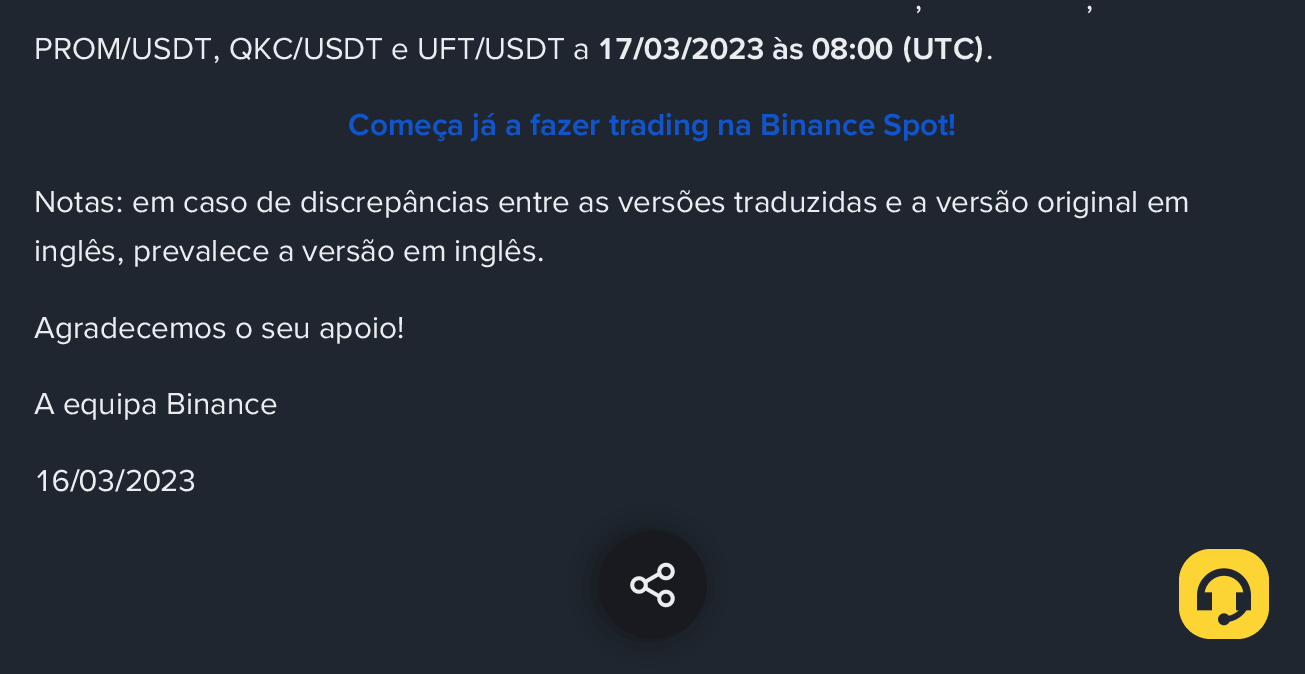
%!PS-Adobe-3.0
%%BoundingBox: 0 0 1305 674
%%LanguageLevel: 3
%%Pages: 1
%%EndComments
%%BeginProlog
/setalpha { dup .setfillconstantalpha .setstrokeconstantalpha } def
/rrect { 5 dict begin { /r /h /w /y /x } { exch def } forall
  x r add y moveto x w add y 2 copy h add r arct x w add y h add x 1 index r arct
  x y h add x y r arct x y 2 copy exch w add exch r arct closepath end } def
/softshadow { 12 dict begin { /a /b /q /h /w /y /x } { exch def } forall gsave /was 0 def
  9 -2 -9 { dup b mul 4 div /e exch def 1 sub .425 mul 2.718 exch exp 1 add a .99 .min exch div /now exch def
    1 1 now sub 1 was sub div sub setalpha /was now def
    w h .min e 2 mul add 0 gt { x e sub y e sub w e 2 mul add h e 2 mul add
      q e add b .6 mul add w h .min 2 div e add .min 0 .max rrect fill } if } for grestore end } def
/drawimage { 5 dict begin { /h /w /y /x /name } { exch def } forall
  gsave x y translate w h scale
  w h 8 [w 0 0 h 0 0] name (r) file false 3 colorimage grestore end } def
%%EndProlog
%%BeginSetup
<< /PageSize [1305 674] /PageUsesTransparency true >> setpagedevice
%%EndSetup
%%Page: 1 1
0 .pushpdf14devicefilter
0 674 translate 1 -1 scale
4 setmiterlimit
0.125 0.149 0.188 setrgbcolor
0 0 1305 674 rectfill
0 setgray
594 531 108 108 54 16 0.4 softshadow
0.098 0.102 0.122 setrgbcolor
newpath 653 585 54 0 360 arc closepath fill
(images/1.raw) 630 562 45 46 drawimage
0.988 0.835 0.208 setrgbcolor
1179 549 90 90 32 rrect fill
(images/2.raw) 1197 568 54 58 drawimage
/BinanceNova-Regular [31.5 0 0 -31.5 0 0] selectfont
0.918 0.925 0.937 setrgbcolor
914 9 moveto (,) show
1085 9 moveto (,) show
34 59 moveto (PROM/USDT, QKC/USDT e UFT/USDT a) show
/BinanceNova-SemiBold [31.5 0 0 -31.5 0 0] selectfont
597 59 moveto (17/03/2023 às 08:00 \(UTC\)) show
/BinanceNova-Regular [31.5 0 0 -31.5 0 0] selectfont
985 59 moveto (.) show
/BinanceNova-SemiBold [31.5 0 0 -31.5 0 0] selectfont
0.067 0.333 0.8 setrgbcolor
348 135 moveto (Começa já a fazer trading na Binance Spot!) show
/BinanceNova-Regular [31.5 0 0 -31.5 0 0] selectfont
0.918 0.925 0.937 setrgbcolor
34 212 moveto (Notas: em caso de discrepâncias entre as versões traduzidas e a versão original em) show
34 261 moveto (inglês, prevalece a versão em inglês.) show
34 338 moveto (Agradecemos o seu apoio!) show
34 414 moveto (A equipa Binance) show
34 491 moveto (16/03/2023) show
.poppdf14devicefilter showpage
%%EOF
